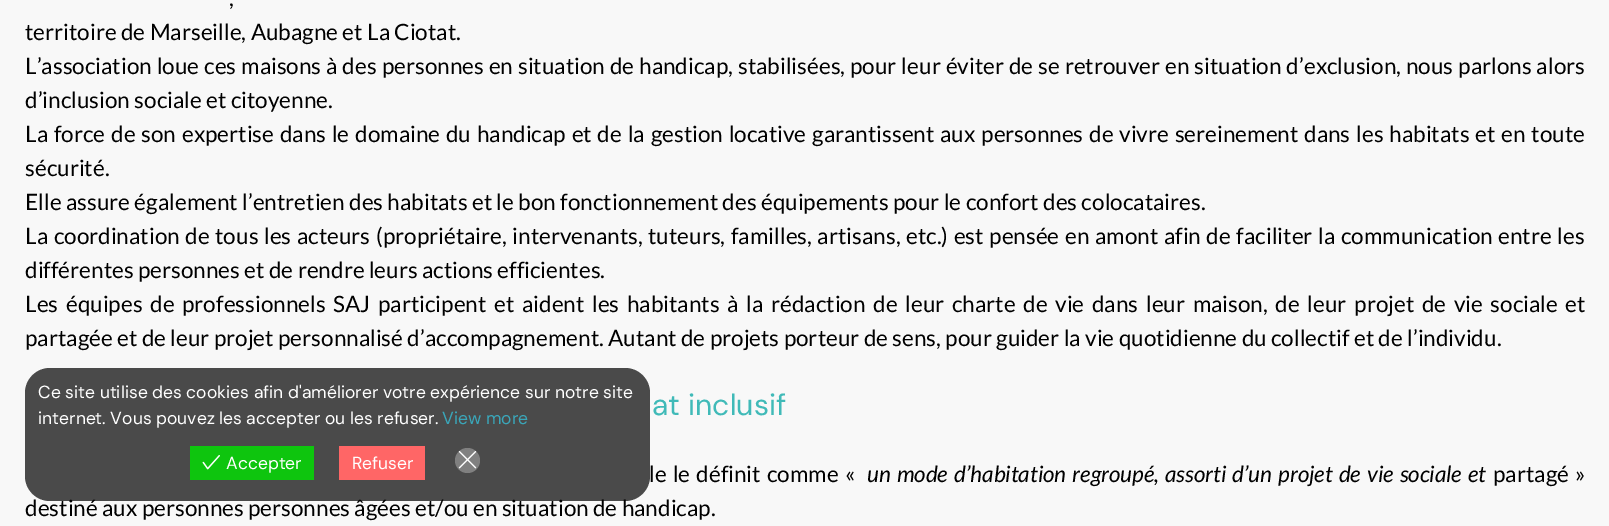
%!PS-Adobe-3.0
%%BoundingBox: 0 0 1609 526
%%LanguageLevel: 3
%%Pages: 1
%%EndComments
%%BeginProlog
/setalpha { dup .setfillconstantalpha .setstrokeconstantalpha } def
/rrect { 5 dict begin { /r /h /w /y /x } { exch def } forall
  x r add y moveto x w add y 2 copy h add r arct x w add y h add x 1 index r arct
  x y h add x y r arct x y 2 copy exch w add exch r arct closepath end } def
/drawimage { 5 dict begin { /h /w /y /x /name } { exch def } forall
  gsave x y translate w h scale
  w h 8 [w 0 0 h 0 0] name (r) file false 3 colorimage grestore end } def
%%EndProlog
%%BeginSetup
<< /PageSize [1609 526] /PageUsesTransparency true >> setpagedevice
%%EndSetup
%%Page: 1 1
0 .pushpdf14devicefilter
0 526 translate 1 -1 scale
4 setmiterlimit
0.973 setgray
0 0 1609 526 rectfill
/Lato-Regular [22.5 0 0 -22.5 0 0] selectfont
0 setgray
229 6 moveto 2 0 32 (,) widthshow
25 40 moveto (territoire de Marseille, Aubagne et La Ciotat.) show
25 74 moveto 0.6 0 32 (L’association loue ces maisons à des personnes en situation de handicap, stabilisées, pour leur éviter de se retrouver en situation d’exclusion, nous parlons alors) widthshow
25 108 moveto (d’inclusion sociale et citoyenne.) show
25 142 moveto 1.45 0 32 (La force de son expertise dans le domaine du handicap et de la gestion locative garantissent aux personnes de vivre sereinement dans les habitats et en toute) widthshow
25 176 moveto (sécurité.) show
25 210 moveto (Elle assure également l’entretien des habitats et le bon fonctionnement des équipements pour le confort des colocataires.) show
25 244 moveto 1.25 0 32 (La coordination de tous les acteurs \(propriétaire, intervenants, tuteurs, familles, artisans, etc.\) est pensée en amont afin de faciliter la communication entre les) widthshow
25 278 moveto (différentes personnes et de rendre leurs actions efficientes.) show
25 312 moveto 3.3 0 32 (Les équipes de professionnels SAJ participent et aident les habitants à la rédaction de leur charte de vie dans leur maison, de leur projet de vie sociale et) widthshow
25 346 moveto (partagée et de leur projet personnalisé d’accompagnement. Autant de projets porteur de sens, pour guider la vie quotidienne du collectif et de l’individu.) show
/DMSans-Regular [30 0 0 -30 0 0] selectfont
0.251 0.729 0.722 setrgbcolor
652 415 moveto (at inclusif) show
/Lato-Regular [22.5 0 0 -22.5 0 0] selectfont
0 setgray
649 482 moveto 1.75 0 32 (le le définit comme «) widthshow
/Lato-Italic [22.5 0 0 -22.5 0 0] selectfont
867 482 moveto 1.75 0 32 (un mode d’habitation regroupé, assorti d’un projet de vie sociale et) widthshow
/Lato-Regular [22.5 0 0 -22.5 0 0] selectfont
1493 482 moveto 1.75 0 32 (partagé ») widthshow
25 516 moveto (destiné aux personnes personnes âgées et/ou en situation de handicap.) show
0.7 setalpha
25 368 625 133 25 rrect fill
/DMSans-Regular [17.5 0 0 -17.5 0 0] selectfont
1 setalpha
1 setgray
38 398 moveto (Ce site utilise des cookies afin d'améliorer votre expérience sur notre site) show
38 424 moveto (internet. Vous pouvez les accepter ou les refuser.) show
0.227 0.651 0.725 setrgbcolor
442 424 moveto (View more) show
0.055 0.773 0.055 setrgbcolor
190 446 124 34 rectfill
(images/1.raw) 202 455 18 15 drawimage
1 setgray
226 469 moveto (Accepter) show
1 0.4 0.4 setrgbcolor
339 446 86 34 rectfill
1 setgray
352 469 moveto (Refuser) show
0.502 setgray
newpath 467.5 460.5 12.5 0 360 arc closepath fill
(images/2.raw) 458 451 19 18 drawimage
.poppdf14devicefilter showpage
%%EOF
